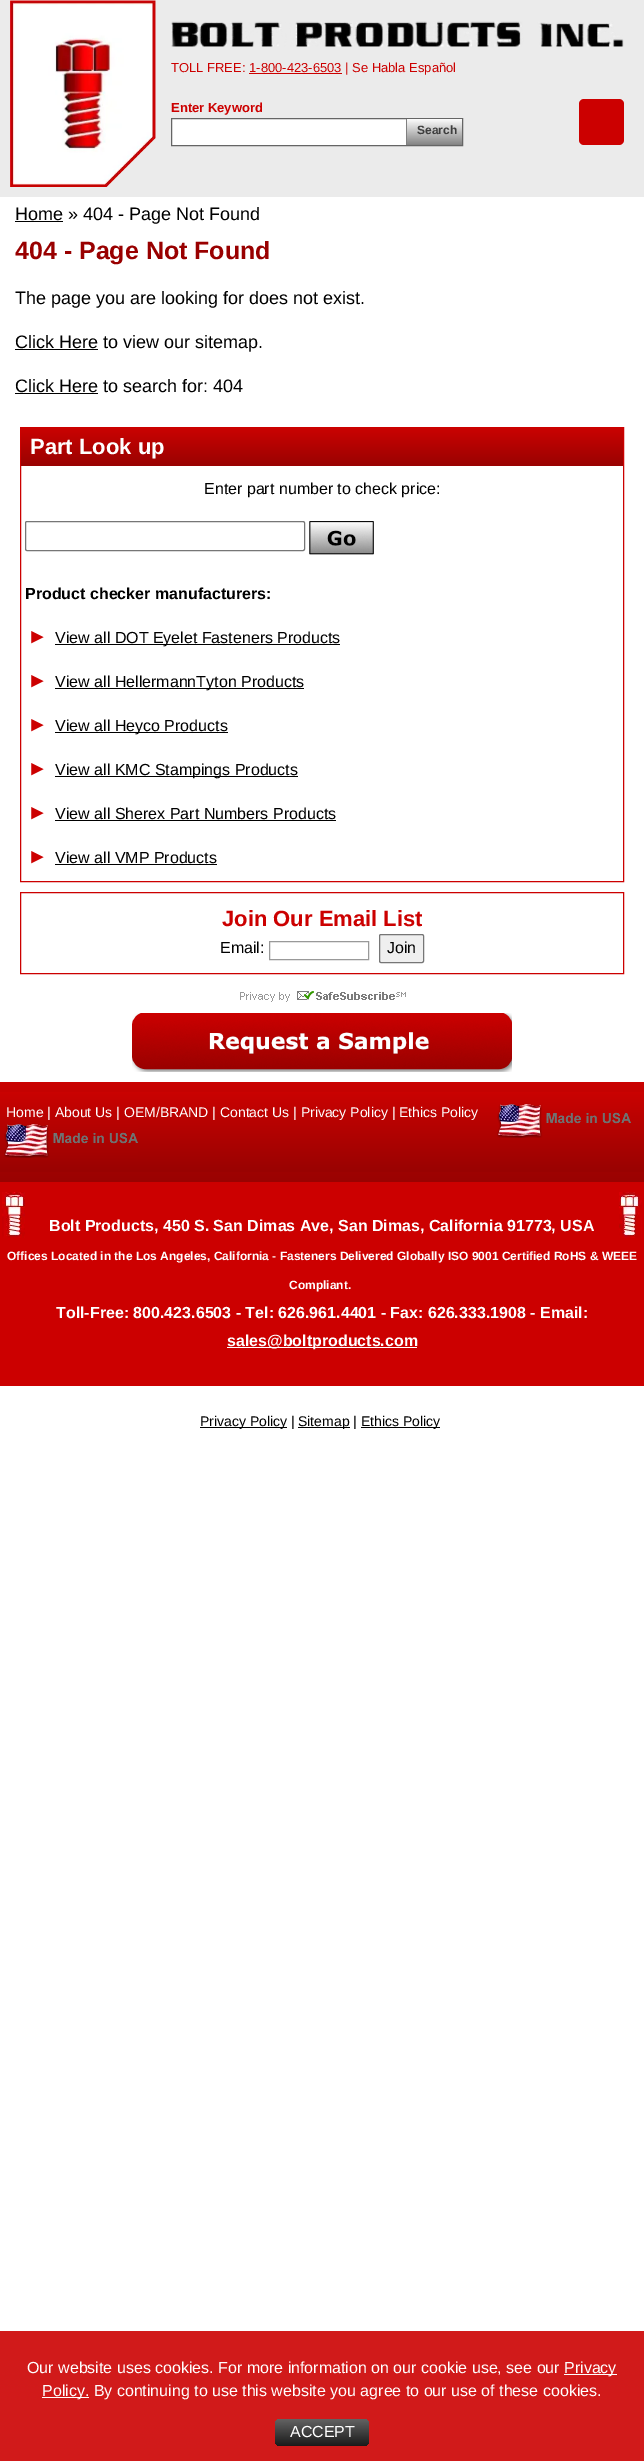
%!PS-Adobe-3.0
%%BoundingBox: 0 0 644 2461
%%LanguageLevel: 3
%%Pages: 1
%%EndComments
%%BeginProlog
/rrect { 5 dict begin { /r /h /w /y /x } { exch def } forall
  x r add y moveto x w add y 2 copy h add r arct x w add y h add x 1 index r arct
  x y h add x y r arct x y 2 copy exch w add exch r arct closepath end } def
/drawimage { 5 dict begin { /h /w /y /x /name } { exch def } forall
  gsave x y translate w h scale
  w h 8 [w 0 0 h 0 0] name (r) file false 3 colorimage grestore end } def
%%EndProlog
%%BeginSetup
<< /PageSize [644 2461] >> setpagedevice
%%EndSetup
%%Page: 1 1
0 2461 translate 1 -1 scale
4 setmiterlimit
1 setgray
0 0 644 2461 rectfill
0.922 setgray
0 0 644 197 rectfill
(images/1.raw) 10 0 146 187 drawimage
(images/2.raw) 171 21 453 26 drawimage
0.8 0 0 setrgbcolor
249 73 93 1 rectfill
1 setgray
172 119 234 26 rectfill
0.396 setgray
171.5 118.5 291 27 rectstroke
gsave newpath 407 119 moveto 462 119 lineto 462 145 lineto 407 145 lineto closepath clip newpath
<< /ShadingType 2 /ColorSpace /DeviceRGB /Coords [435 119 435 145] /Extend [true true] /Function << /FunctionType 2 /Domain [0 1] /C0 [0.992 0.992 0.992] /C1 [0.514 0.514 0.514] /N 1 >> >> shfill grestore
0.502 setgray
406 119 1 26 rectfill
0.8 0 0 setrgbcolor
579 99 45 46 5 rrect fill
0 setgray
15 221 48 1 rectfill
15 349 83 1 rectfill
15 393 83 1 rectfill
0.8 0 0 setrgbcolor
20.5 427.5 603 454 rectstroke
gsave newpath 21 428 moveto 27 428 lineto 27 466 lineto 21 466 lineto closepath clip newpath
<< /ShadingType 2 /ColorSpace /DeviceRGB /Coords [24 466 24 428] /Extend [true true] /Function << /FunctionType 2 /Domain [0 1] /C0 [0.6 0.008 0.004] /C1 [0.792 0.008 0.004] /N 1 >> >> shfill grestore
gsave newpath 27 428 moveto 617 428 lineto 617 466 lineto 27 466 lineto closepath clip newpath
<< /ShadingType 2 /ColorSpace /DeviceRGB /Coords [322 466 322 428] /Extend [true true] /Function << /FunctionType 2 /Domain [0 1] /C0 [0.6 0.008 0.004] /C1 [0.792 0.008 0.004] /N 1 >> >> shfill grestore
gsave newpath 617 428 moveto 623 428 lineto 623 466 lineto 617 466 lineto closepath clip newpath
<< /ShadingType 2 /ColorSpace /DeviceRGB /Coords [620 466 620 428] /Extend [true true] /Function << /FunctionType 2 /Domain [0 1] /C0 [0.6 0.008 0.004] /C1 [0.792 0.008 0.004] /N 1 >> >> shfill grestore
0.463 setgray
25.5 521.5 279 29 1.5 rrect stroke
(images/3.raw) 309 521 65 34 drawimage
(images/4.raw) 31 631 13 13 drawimage
0 setgray
55 644 285 1 rectfill
(images/4.raw) 31 675 13 13 drawimage
55 688 249 1 rectfill
(images/4.raw) 31 719 13 13 drawimage
55 732 173 1 rectfill
(images/4.raw) 31 763 13 13 drawimage
55 776 243 1 rectfill
(images/4.raw) 31 807 13 13 drawimage
55 820 281 1 rectfill
(images/4.raw) 31 851 13 13 drawimage
55 864 162 1 rectfill
0.8 0 0 setrgbcolor
20.5 892.5 603 81 rectstroke
0.6 setgray
269.5 941.5 99 18 rectstroke
0.937 setgray
379.5 934.5 44 28 1.5 rrect gsave fill grestore
0.463 setgray
stroke
(images/5.raw) 240 991 166 11 drawimage
(images/6.raw) 132 1013 380 59 drawimage
gsave newpath 0 1082 moveto 644 1082 lineto 644 1182 lineto 0 1182 lineto closepath clip newpath
<< /ShadingType 2 /ColorSpace /DeviceRGB /Coords [322 1182 322 1082] /Extend [true true] /Function << /FunctionType 2 /Domain [0 1] /C0 [0.6 0.008 0.004] /C1 [0.792 0.008 0.004] /N 1 >> >> shfill grestore
gsave newpath 0 1092 moveto 644 1092 lineto 644 1172 lineto 0 1172 lineto closepath clip newpath
<< /ShadingType 2 /ColorSpace /DeviceRGB /Coords [322 1172 322 1092] /Extend [true true] /Function << /FunctionType 2 /Domain [0 1] /C0 [0.6 0.008 0.004] /C1 [0.792 0.008 0.004] /N 1 >> >> shfill grestore
(images/7.raw) 497 1103 134 35 drawimage
(images/8.raw) 4 1123 134 35 drawimage
0.8 0 0 setrgbcolor
0 1182 644 204 rectfill
(images/9.raw) 2 1192 23 46 drawimage
(images/10.raw) 619 1192 23 46 drawimage
1 setgray
227 1347 190 1 rectfill
0 setgray
200 1427 87 1 rectfill
298 1427 52 1 rectfill
361 1427 79 1 rectfill
0.82 0.102 0.102 setrgbcolor
0 2331 644 130 rectfill
1 setgray
564 2374 53 1 rectfill
42 2397 47 1 rectfill
gsave 275 2419 94 27 5 rrect clip newpath
<< /ShadingType 2 /ColorSpace /DeviceRGB /Coords [322 2419 322 2446] /Extend [true true] /Function << /FunctionType 2 /Domain [0 1] /C0 [0.388 0.388 0.388] /C1 [0.102 0.102 0.102] /N 1 >> >> shfill grestore
/LiberationSans-Regular [13 0 0 -13 0 0] selectfont
0.8 0 0 setrgbcolor
171 72 moveto (TOLL FREE: 1-800-423-6503 | Se Habla Español) show
/LiberationSans-Bold [13 0 0 -13 0 0] selectfont
171 112 moveto (Enter Keyword) show
/LiberationSans-Bold [12 0 0 -12 0 0] selectfont
0.239 setgray
417 134 moveto (Search) show
/LiberationSans-Regular [18 0 0 -18 0 0] selectfont
0 setgray
15 220 moveto (Home » 404 - Page Not Found) show
/LiberationSans-Bold [25 0 0 -25 0 0] selectfont
0.6 0 0 setrgbcolor
15 259 moveto (404 - Page Not Found) show
/LiberationSans-Regular [18 0 0 -18 0 0] selectfont
0 setgray
15 304 moveto (The page you are looking for does not exist.) show
15 348 moveto (Click Here to view our sitemap.) show
15 392 moveto (Click Here to search for: 404) show
/LiberationSans-Bold [22 0 0 -22 0 0] selectfont
1 setgray
30 454 moveto (Part Look up) show
/LiberationSans-Regular [16 0 0 -16 0 0] selectfont
0 setgray
204 494 moveto (Enter part number to check price:) show
/LiberationSans-Bold [16 0 0 -16 0 0] selectfont
25 599 moveto (Product checker manufacturers:) show
/LiberationSans-Regular [16 0 0 -16 0 0] selectfont
55 643 moveto (View all DOT Eyelet Fasteners Products) show
55 687 moveto (View all HellermannTyton Products) show
55 731 moveto (View all Heyco Products) show
55 775 moveto (View all KMC Stampings Products) show
55 819 moveto (View all Sherex Part Numbers Products) show
55 863 moveto (View all VMP Products) show
/LiberationSans-Bold [22 0 0 -22 0 0] selectfont
0.8 0 0 setrgbcolor
222 926 moveto (Join Our Email List) show
/LiberationSans-Regular [16 0 0 -16 0 0] selectfont
0 setgray
220 953 moveto (Email:) show
387 953 moveto (Join) show
/LiberationSans-Regular [14 0 0 -14 0 0] selectfont
1 setgray
6 1117 moveto (Home | About Us | OEM/BRAND | Contact Us | Privacy Policy | Ethics Policy) show
/LiberationSans-Bold [16 0 0 -16 0 0] selectfont
49 1231 moveto (Bolt Products, 450 S. San Dimas Ave, San Dimas, California 91773, USA) show
/LiberationSans-Bold [12 0 0 -12 0 0] selectfont
7 1260 moveto (Offices Located in the Los Angeles, California - Fasteners Delivered Globally ISO 9001 Certified RoHS & WEEE) show
289 1289 moveto (Compliant.) show
/LiberationSans-Bold [16 0 0 -16 0 0] selectfont
56 1318 moveto (Toll-Free: 800.423.6503 - Tel: 626.961.4401 - Fax: 626.333.1908 - Email:) show
227 1346 moveto (sales@boltproducts.com) show
/LiberationSans-Regular [14 0 0 -14 0 0] selectfont
0 setgray
200 1426 moveto (Privacy Policy |) show
298 1426 moveto (Sitemap |) show
361 1426 moveto (Ethics Policy) show
/LiberationSans-Regular [16 0 0 -16 0 0] selectfont
1 setgray
27 2373 moveto (Our website uses cookies. For more information on our cookie use, see our) show
564 2373 moveto (Privacy) show
42 2396 moveto (Policy. By continuing to use this website you agree to our use of these cookies.) show
290 2437 moveto (ACCEPT) show
showpage
%%EOF
